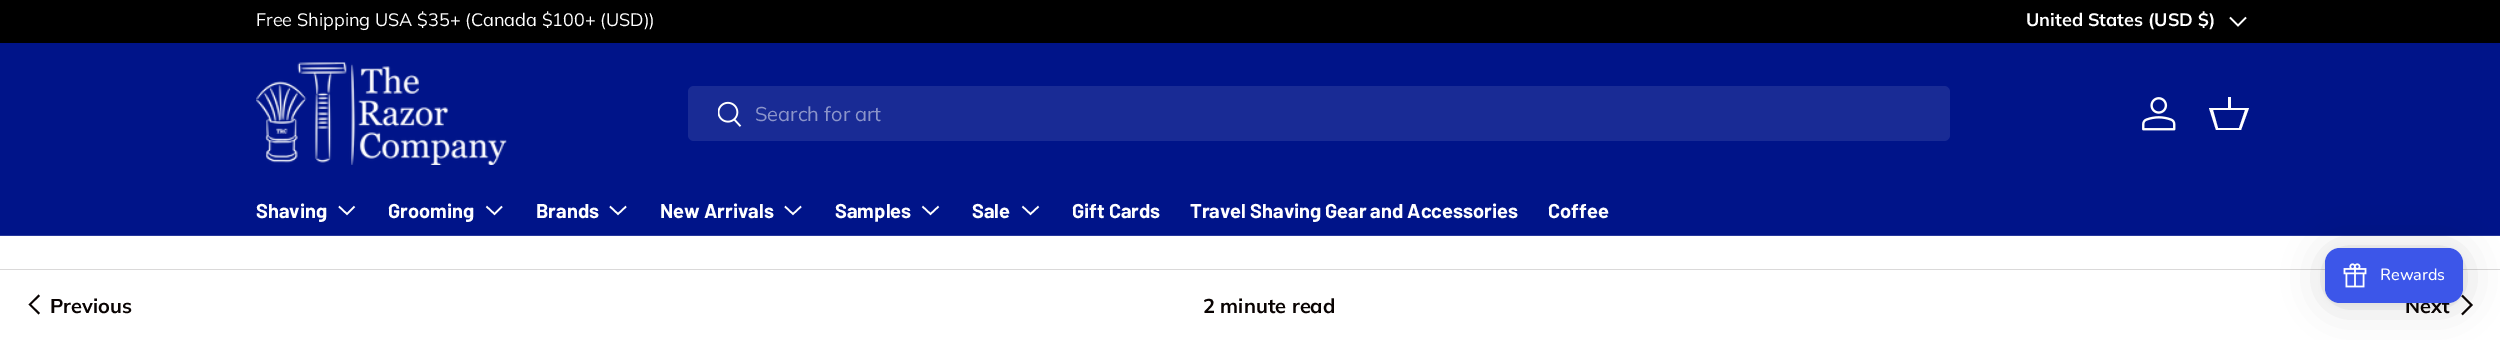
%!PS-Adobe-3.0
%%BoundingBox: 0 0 2500 340
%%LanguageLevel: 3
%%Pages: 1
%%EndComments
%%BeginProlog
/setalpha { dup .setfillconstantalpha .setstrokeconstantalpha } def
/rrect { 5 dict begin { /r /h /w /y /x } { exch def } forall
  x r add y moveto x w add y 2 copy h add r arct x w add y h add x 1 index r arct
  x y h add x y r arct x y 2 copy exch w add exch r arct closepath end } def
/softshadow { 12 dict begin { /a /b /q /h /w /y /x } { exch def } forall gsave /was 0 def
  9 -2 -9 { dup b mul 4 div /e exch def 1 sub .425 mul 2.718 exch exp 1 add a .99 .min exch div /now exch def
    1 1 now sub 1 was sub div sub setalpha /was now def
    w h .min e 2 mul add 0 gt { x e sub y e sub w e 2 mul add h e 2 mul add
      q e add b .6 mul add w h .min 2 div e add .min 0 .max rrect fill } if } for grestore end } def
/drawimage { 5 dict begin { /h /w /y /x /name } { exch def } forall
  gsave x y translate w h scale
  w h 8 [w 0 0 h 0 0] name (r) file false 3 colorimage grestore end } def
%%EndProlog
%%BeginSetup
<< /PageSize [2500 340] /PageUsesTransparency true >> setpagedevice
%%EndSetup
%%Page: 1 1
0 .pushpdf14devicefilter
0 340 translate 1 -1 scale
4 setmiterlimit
1 setgray
0 0 2500 340 rectfill
0 setgray
0 0 2500 43 rectfill
1 setgray
1.6 setlinewidth
newpath 2246 17.5 moveto 2238 25.5 lineto 2230 17.5 lineto stroke
0 0.078 0.537 setrgbcolor
0 43 2500 192 rectfill
0.149 0.216 0.608 setrgbcolor
0 235 2500 1 rectfill
(images/1.raw) 256 62 251 103 drawimage
0.098 0.169 0.584 setrgbcolor
688 86 1262 55 6 rrect fill
(images/2.raw) 718 101 24 26 drawimage
(images/3.raw) 2142 97 34 34 drawimage
1 setgray
newpath 2228 108 moveto 2228 97 lineto 2231 97 lineto 2231 108 lineto 2249 108 lineto 2241 130 lineto 2216 130 lineto 2209 108 lineto closepath 2213 110 moveto 2218 128 lineto 2239 128 lineto 2245 110 lineto closepath fill
newpath 354.5 206.5 moveto 347 214 lineto 339 206.5 lineto stroke
newpath 502 206.5 moveto 494.5 214 lineto 486.5 206.5 lineto stroke
newpath 626 206.5 moveto 618 214 lineto 610 206.5 lineto stroke
newpath 801 206.5 moveto 793 214 lineto 785 206.5 lineto stroke
newpath 938.5 206.5 moveto 930.5 214 lineto 922.5 206.5 lineto stroke
newpath 1038.5 206.5 moveto 1030.5 214 lineto 1022.5 206.5 lineto stroke
0.855 0.851 0.851 setrgbcolor
0 269 2500 1 rectfill
0.035 0.012 0.008 setrgbcolor
1.9 setlinewidth
newpath 2462 295.5 moveto 2471.5 305 lineto 2462 314.5 lineto stroke
0 setgray
2325 250 138 55 15 20 0.16 softshadow
2325 249 138 55 15 4 0.06 softshadow
0.035 0.012 0.008 setrgbcolor
newpath 28.5 304.5 moveto 38.5 294.5 lineto 40 296 lineto 31 304.5 lineto 40 313 lineto 38.5 314.5 lineto closepath fill
/Muli-Regular [18 0 0 -18 0 0] selectfont
1 setgray
256 26 moveto (Free Shipping USA $35+ \(Canada $100+ \(USD\)\)) show
/Muli-Bold [18 0 0 -18 0 0] selectfont
2026 26 moveto (United States \(USD $\)) show
/Muli-Regular [20 0 0 -20 0 0] selectfont
0.549 0.584 0.792 setrgbcolor
755 121 moveto (Search for art) show
/Barlow-Bold [20 0 0 -20 0 0] selectfont
1 setgray
256 218 moveto (Shaving) show
388 218 moveto (Grooming) show
536 218 moveto (Brands) show
660 218 moveto (New Arrivals) show
835 218 moveto (Samples) show
972 218 moveto (Sale) show
1072 218 moveto (Gift Cards) show
1190 218 moveto (Travel Shaving Gear and Accessories) show
1548 218 moveto (Coffee) show
/Muli-Bold [20 0 0 -20 0 0] selectfont
0.035 0.012 0.008 setrgbcolor
50 313 moveto (Previous) show
1203 313 moveto (2 minute read) show
2405 313 moveto (Next) show
0.235 0.337 0.914 setrgbcolor
2325 248 138 55 15 rrect fill
(images/4.raw) 2343 263 24 25 drawimage
/Nunito-Medium [16.25 0 0 -16.25 0 0] selectfont
1 setgray
2380 280 moveto (Rewards) show
.poppdf14devicefilter showpage
%%EOF
